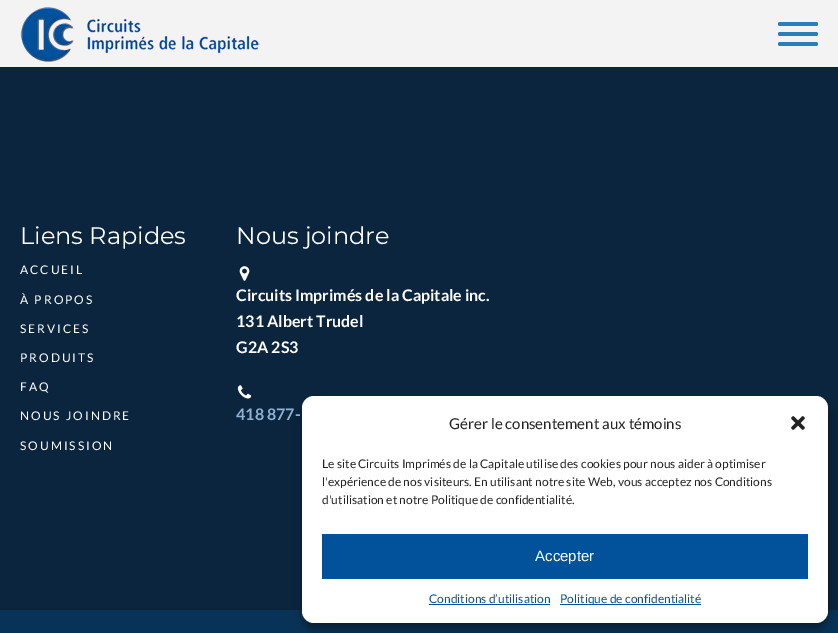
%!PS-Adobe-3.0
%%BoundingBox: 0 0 838 633
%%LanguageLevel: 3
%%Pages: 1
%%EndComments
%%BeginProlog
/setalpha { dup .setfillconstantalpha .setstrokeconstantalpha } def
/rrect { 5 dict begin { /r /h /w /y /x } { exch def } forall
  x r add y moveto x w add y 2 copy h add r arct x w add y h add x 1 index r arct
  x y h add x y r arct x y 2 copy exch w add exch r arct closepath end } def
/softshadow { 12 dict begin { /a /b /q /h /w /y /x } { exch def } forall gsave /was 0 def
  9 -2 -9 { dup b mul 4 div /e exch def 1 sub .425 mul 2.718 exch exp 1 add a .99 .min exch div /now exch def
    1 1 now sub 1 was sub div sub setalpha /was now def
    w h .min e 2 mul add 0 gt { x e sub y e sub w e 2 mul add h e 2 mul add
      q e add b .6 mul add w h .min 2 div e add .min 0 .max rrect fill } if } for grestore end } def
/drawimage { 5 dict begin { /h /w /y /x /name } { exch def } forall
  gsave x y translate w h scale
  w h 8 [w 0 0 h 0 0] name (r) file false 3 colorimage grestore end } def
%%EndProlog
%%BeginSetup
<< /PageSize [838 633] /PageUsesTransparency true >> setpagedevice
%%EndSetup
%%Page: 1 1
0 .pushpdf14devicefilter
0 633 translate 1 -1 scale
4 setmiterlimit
0.953 setgray
0 0 838 633 rectfill
(images/1.raw) 20 7 240 55 drawimage
0.161 0.502 0.725 setrgbcolor
778 22 40 4 2 rrect fill
778 32 40 4 2 rrect fill
778 42 40 4 2 rrect fill
0.039 0.145 0.239 setrgbcolor
0 67 838 543 rectfill
(images/2.raw) 239 266 11 15 drawimage
(images/3.raw) 237 385 15 14 drawimage
0.031 0.2 0.349 setrgbcolor
0 610 838 23 rectfill
0 setgray
302 402 526 227 12 3 0.23 softshadow
302 406 526 227 12 10 0.19 softshadow
1 setgray
302 396 526 227 12 rrect fill
(images/4.raw) 791 416 14 14 drawimage
0.004 0.322 0.604 setrgbcolor
322 534 486 45 rectfill
429 604 121 1 rectfill
560 604 141 1 rectfill
/Montserrat-Regular [24 0 0 -24 0 0] selectfont
1 setgray
20 244 moveto (Liens Rapides) show
/Lato-Regular [12 0 0 -12 0 0] selectfont
20 274 moveto 2 0 (ACCUEIL) ashow
20 304 moveto 2 0 (À PROPOS) ashow
20 333 moveto 2 0 (SERVICES) ashow
20 362 moveto 2 0 (PRODUITS) ashow
20 391 moveto 2 0 (FAQ) ashow
20 420 moveto 2 0 (NOUS JOINDRE) ashow
20 450 moveto 2 0 (SOUMISSION) ashow
/Montserrat-Regular [24 0 0 -24 0 0] selectfont
236 244 moveto (Nous joindre) show
/Lato-Bold [16 0 0 -16 0 0] selectfont
236 301 moveto (Circuits Imprimés de la Capitale inc.) show
236 327 moveto (131 Albert Trudel) show
236 353 moveto (G2A 2S3) show
0.553 0.694 0.824 setrgbcolor
236 420 moveto (418 877-) show
/Lato-Regular [15 0 0 -15 0 0] selectfont
0.133 setgray
449 429 moveto (Gérer le consentement aux témoins) show
/Lato-Regular [12 0 0 -12 0 0] selectfont
322 468 moveto (Le site Circuits Imprimés de la Capitale utilise des cookies pour nous aider à optimiser) show
322 486 moveto (l'expérience de nos visiteurs. En utilisant notre site Web, vous acceptez nos Conditions) show
322 504 moveto (d'utilisation et notre Politique de confidentialité.) show
/LiberationSans-Regular [15 0 0 -15 0 0] selectfont
1 setgray
535 561 moveto (Accepter) show
/Lato-Regular [12 0 0 -12 0 0] selectfont
0.004 0.322 0.604 setrgbcolor
429 603 moveto (Conditions d’utilisation) show
560 603 moveto (Politique de confidentialité) show
.poppdf14devicefilter showpage
%%EOF
